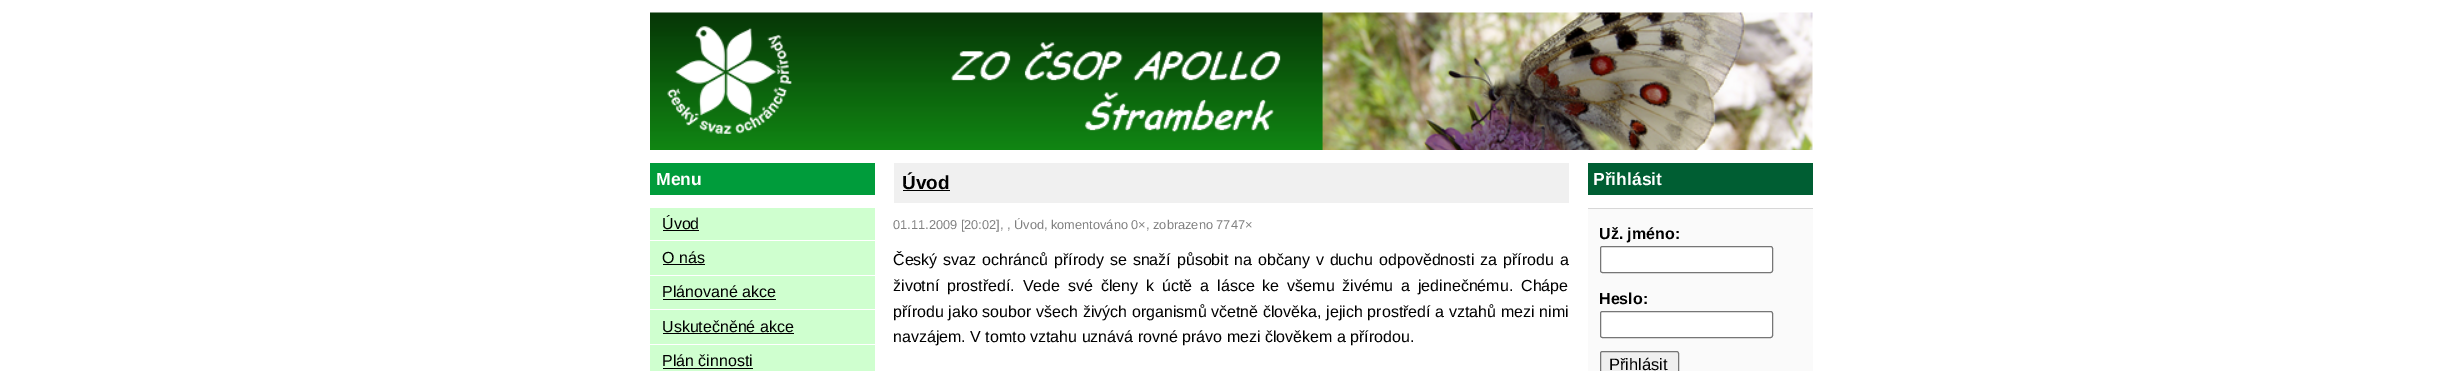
%!PS-Adobe-3.0
%%BoundingBox: 0 0 2461 371
%%LanguageLevel: 3
%%Pages: 1
%%EndComments
%%BeginProlog
/rrect { 5 dict begin { /r /h /w /y /x } { exch def } forall
  x r add y moveto x w add y 2 copy h add r arct x w add y h add x 1 index r arct
  x y h add x y r arct x y 2 copy exch w add exch r arct closepath end } def
/drawimage { 5 dict begin { /h /w /y /x /name } { exch def } forall
  gsave x y translate w h scale
  w h 8 [w 0 0 h 0 0] name (r) file false 3 colorimage grestore end } def
%%EndProlog
%%BeginSetup
<< /PageSize [2461 371] >> setpagedevice
%%EndSetup
%%Page: 1 1
0 371 translate 1 -1 scale
4 setmiterlimit
1 setgray
0 0 2461 371 rectfill
(images/1.raw) 650 12 1163 138 drawimage
0 0.612 0.231 setrgbcolor
650 163 225 32 rectfill
0.812 1 0.812 setrgbcolor
650 208 225 32 rectfill
0 setgray
663 230 36 1 rectfill
0.812 1 0.812 setrgbcolor
650 241 225 34 rectfill
0 setgray
663 264 42 1 rectfill
0.812 1 0.812 setrgbcolor
650 276 225 33 rectfill
0 setgray
663 299 113 1 rectfill
0.812 1 0.812 setrgbcolor
650 310 225 34 rectfill
0 setgray
663 333 131 1 rectfill
0.812 1 0.812 setrgbcolor
650 345 225 26 rectfill
0 setgray
663 368 90 1 rectfill
0.941 setgray
894 163 675 40 rectfill
0 setgray
903 190 47 1 rectfill
0 0.369 0.2 setrgbcolor
1588 163 225 32 rectfill
0.98 setgray
1588 209 225 162 rectfill
0.843 setgray
1588 208 225 1 rectfill
1 setgray
1600.5 246.5 172 26 2 rrect gsave fill grestore
0.463 setgray
stroke
1 setgray
1600.5 311.5 172 26 2 rrect gsave fill grestore
0.463 setgray
stroke
0.937 setgray
1600.5 351.5 78 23 2 rrect gsave fill grestore
0.463 setgray
stroke
/LiberationSans-Bold [17.5 0 0 -17.5 0 0] selectfont
1 setgray
656 185 moveto (Menu) show
/LiberationSans-Regular [16 0 0 -16 0 0] selectfont
0 setgray
662 229 moveto (Úvod) show
662 263 moveto (O nás) show
662 297 moveto (Plánované akce) show
662 332 moveto (Uskutečněné akce) show
662 366 moveto (Plán činnosti) show
/LiberationSans-Bold [19 0 0 -19 0 0] selectfont
902 189 moveto (Úvod) show
/LiberationSans-Regular [12.8 0 0 -12.8 0 0] selectfont
0.502 setgray
893 229 moveto (01.11.2009 [20:02], , Úvod, komentováno 0×, zobrazeno 7747×) show
/LiberationSans-Regular [16 0 0 -16 0 0] selectfont
0 setgray
893 265 moveto 1.5 0 32 (Český svaz ochránců přírody se snaží působit na občany v duchu odpovědnosti za přírodu a) widthshow
893 291 moveto 3.5 0 32 (životní prostředí. Vede své členy k úctě a lásce ke všemu živému a jedinečnému. Chápe) widthshow
893 317 moveto 0.25 0 32 (přírodu jako soubor všech živých organismů včetně člověka, jejich prostředí a vztahů mezi nimi) widthshow
893 342 moveto (navzájem. V tomto vztahu uznává rovné právo mezi člověkem a přírodou.) show
/LiberationSans-Bold [17.5 0 0 -17.5 0 0] selectfont
1 setgray
1593 185 moveto (Přihlásit) show
/LiberationSans-Bold [16 0 0 -16 0 0] selectfont
0 setgray
1599 239 moveto (Už. jméno:) show
1599 304 moveto (Heslo:) show
/LiberationSans-Regular [16.5 0 0 -16.5 0 0] selectfont
1609 370 moveto (Přihlásit) show
showpage
%%EOF
